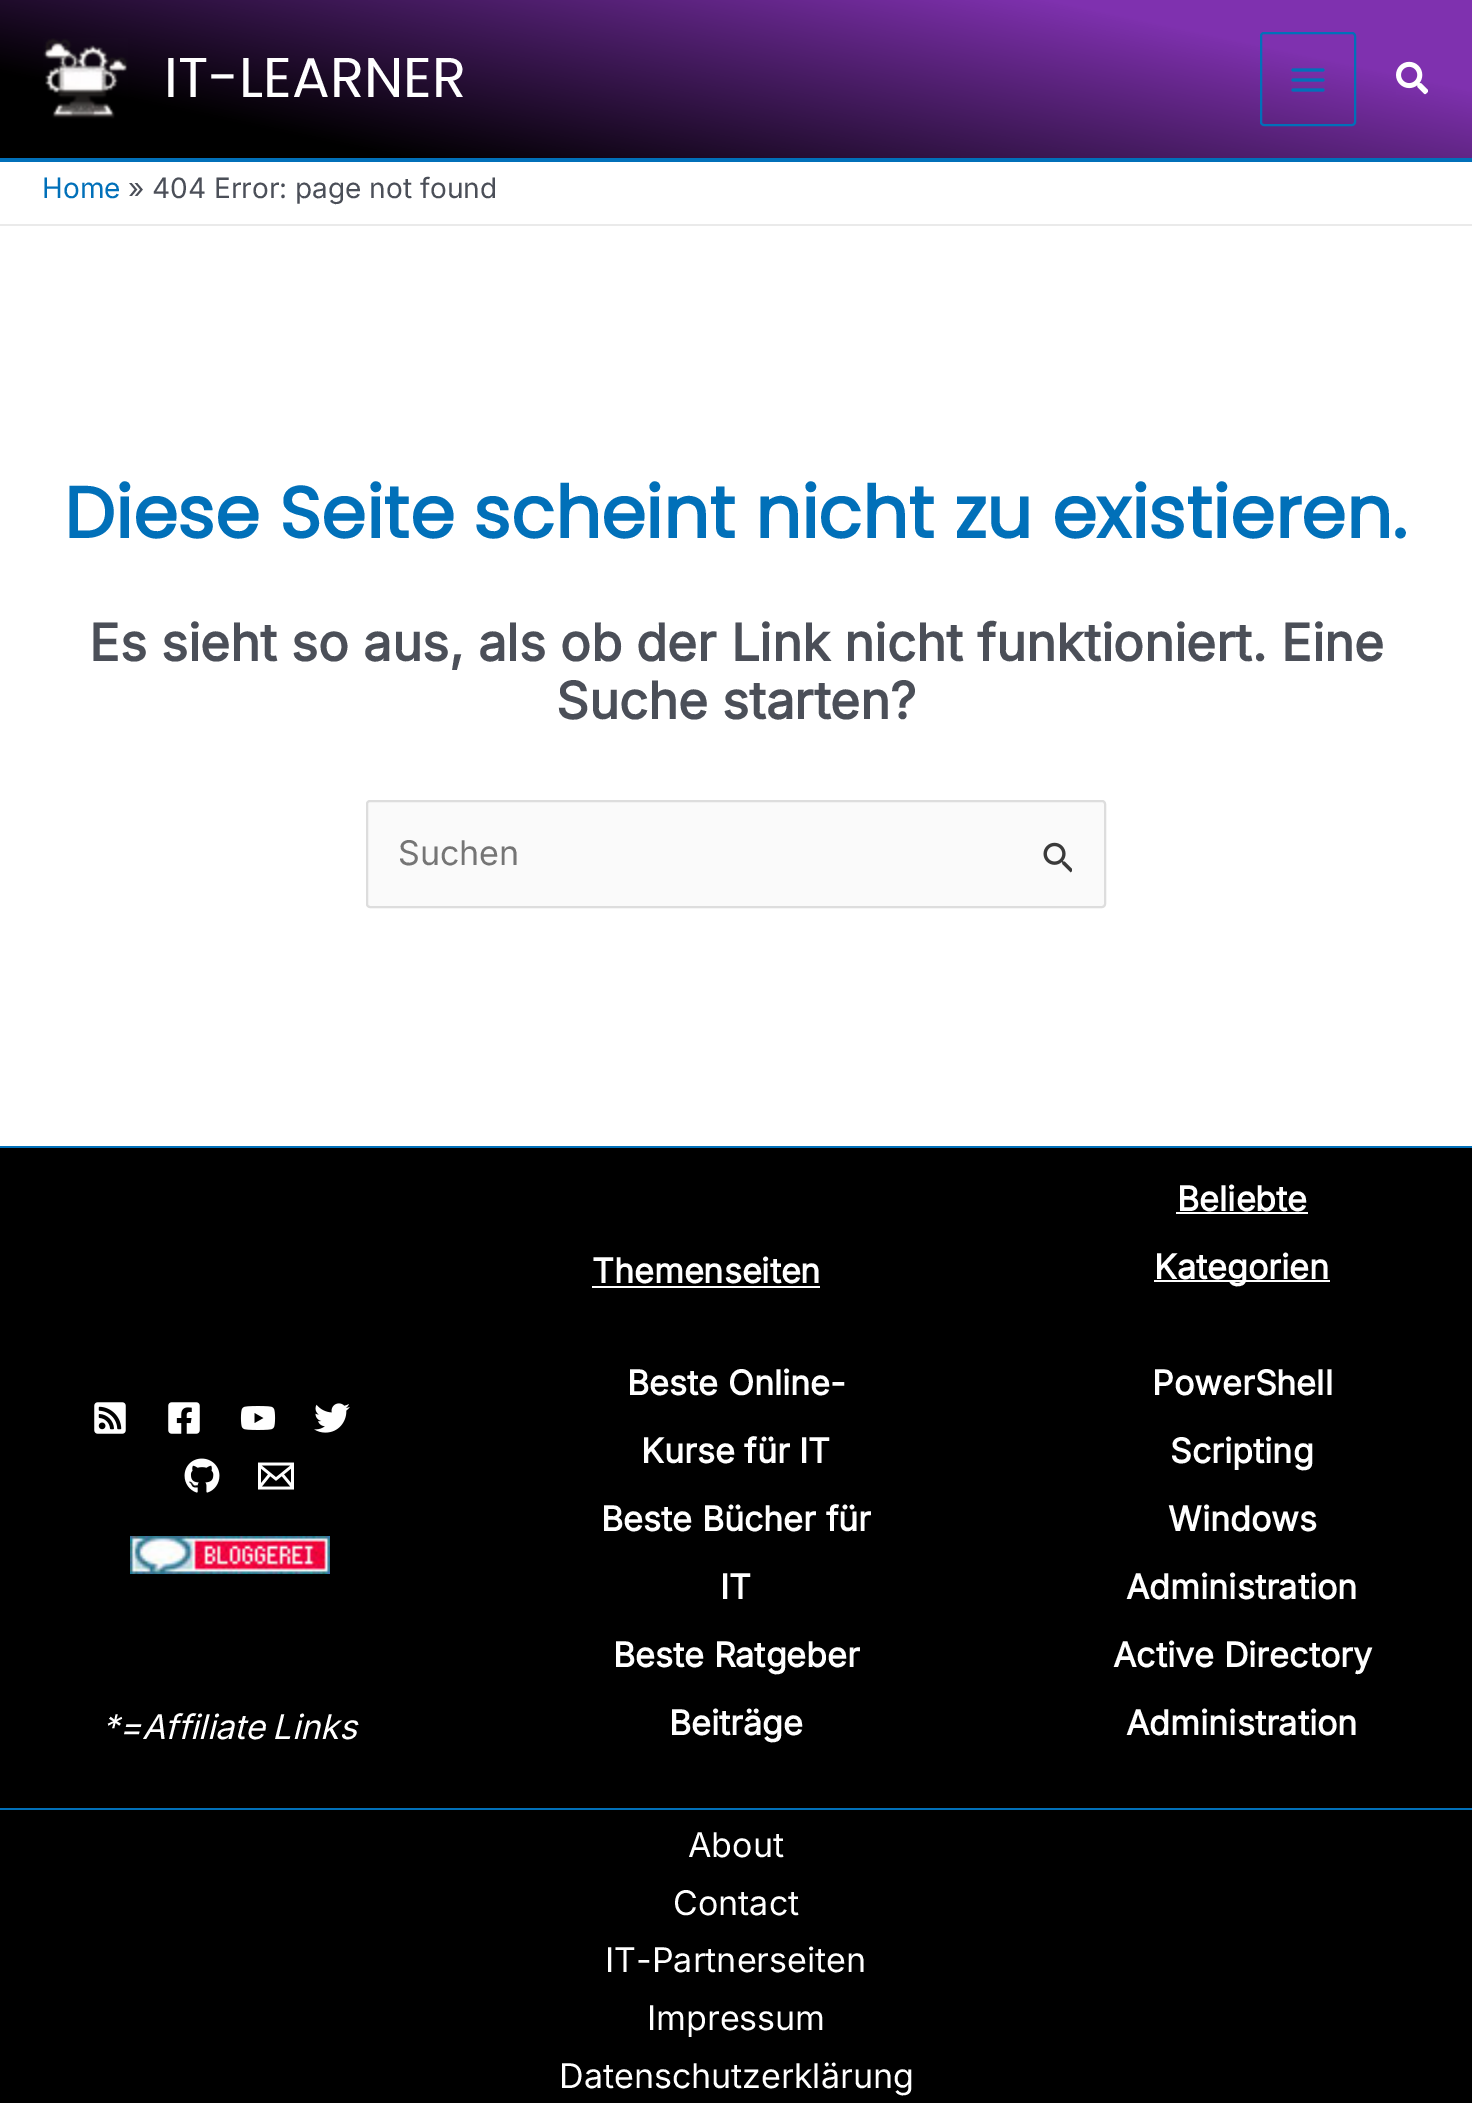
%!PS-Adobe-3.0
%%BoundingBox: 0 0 1472 2103
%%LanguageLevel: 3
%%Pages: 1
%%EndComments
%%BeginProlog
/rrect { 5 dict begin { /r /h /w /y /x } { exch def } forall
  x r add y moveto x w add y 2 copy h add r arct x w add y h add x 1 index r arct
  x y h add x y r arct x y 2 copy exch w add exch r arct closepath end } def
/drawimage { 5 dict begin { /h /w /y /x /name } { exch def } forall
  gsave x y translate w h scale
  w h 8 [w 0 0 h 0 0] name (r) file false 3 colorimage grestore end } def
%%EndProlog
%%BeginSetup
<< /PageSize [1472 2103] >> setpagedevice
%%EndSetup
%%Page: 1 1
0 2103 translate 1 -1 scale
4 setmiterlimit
1 setgray
0 0 1472 2103 rectfill
gsave newpath 0 0 moveto 1472 0 lineto 1472 158 lineto 0 158 lineto closepath clip newpath
<< /ShadingType 2 /ColorSpace /DeviceRGB /Coords [688 304 784 -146] /Extend [true true] /Function << /FunctionType 3 /Domain [0 1] /Functions [<< /FunctionType 2 /Domain [0 1] /C0 [0 0 0] /C1 [0 0 0] /N 1 >> << /FunctionType 2 /Domain [0 1] /C0 [0 0 0] /C1 [0.498 0.192 0.686] /N 1 >> << /FunctionType 2 /Domain [0 1] /C0 [0.498 0.192 0.686] /C1 [0.498 0.192 0.686] /N 1 >>] /Bounds [0.18 0.81] /Encode [0 1 0 1 0 1] >> >> shfill grestore
0.004 0.439 0.725 setrgbcolor
0 158 1472 4 rectfill
(images/1.raw) 43 38 85 81 drawimage
2 setlinewidth
1261 33 94 92 3 rrect stroke
(images/2.raw) 1291 68 34 24 drawimage
(images/3.raw) 1396 61 32 34 drawimage
0.918 setgray
0 224 1472 2 rectfill
0.98 setgray
367 801 738 106 3 rrect gsave fill grestore
0.867 setgray
stroke
(images/4.raw) 1043 842 29 31 drawimage
0 setgray
0 1148 1472 660 rectfill
0.004 0.439 0.725 setrgbcolor
0 1146 1472 2 rectfill
(images/5.raw) 94 1402 32 32 drawimage
(images/6.raw) 168 1402 32 32 drawimage
(images/7.raw) 240 1406 36 24 drawimage
(images/8.raw) 314 1403 36 30 drawimage
(images/9.raw) 184 1458 36 35 drawimage
(images/10.raw) 258 1462 36 28 drawimage
(images/11.raw) 130 1536 200 38 drawimage
1 setgray
592 1286 228 2 rectfill
1176 1212 132 2 rectfill
1154 1280 176 2 rectfill
0 setgray
0 1810 1472 293 rectfill
0.004 0.439 0.725 setrgbcolor
0 1808 1472 2 rectfill
/Poppins-Regular [56 0 0 -56 0 0] selectfont
1 setgray
164 97 moveto (IT-LEARNER) show
/Inter-Regular [28 0 0 -28 0 0] selectfont
0.004 0.439 0.725 setrgbcolor
42 198 moveto (Home) show
0.294 0.31 0.345 setrgbcolor
128 198 moveto (» 404 Error: page not found) show
/Poppins-Bold [72 0 0 -72 0 0] selectfont
0.004 0.439 0.725 setrgbcolor
64 538 moveto (Diese Seite scheint nicht zu existieren.) show
/Inter-Bold [51 0 0 -51 0 0] selectfont
0.294 0.31 0.345 setrgbcolor
89 661 moveto (Es sieht so aus, als ob der Link nicht funktioniert. Eine) show
556 719 moveto (Suche starten?) show
/Inter-Regular [34 0 0 -34 0 0] selectfont
0.459 setgray
398 865 moveto (Suchen) show
/Inter-Italic [34 0 0 -34 0 0] selectfont
1 setgray
102 1739 moveto -2 0 32 (*=Affiliate Links) widthshow
/Inter-Bold [34 0 0 -34 0 0] selectfont
592 1283 moveto (Themenseiten) show
627 1395 moveto (Beste Online-) show
641 1463 moveto (Kurse für IT) show
601 1531 moveto (Beste Bücher für) show
720 1599 moveto (IT) show
613 1667 moveto (Beste Ratgeber) show
669 1735 moveto (Beiträge) show
1177 1211 moveto (Beliebte) show
1154 1279 moveto (Kategorien) show
1152 1395 moveto (PowerShell) show
1170 1463 moveto (Scripting) show
1168 1531 moveto (Windows) show
1126 1599 moveto (Administration) show
1113 1667 moveto (Active Directory) show
1126 1735 moveto (Administration) show
/Inter-Regular [34 0 0 -34 0 0] selectfont
688 1857 moveto (About) show
673 1915 moveto (Contact) show
605 1972 moveto (IT-Partnerseiten) show
647 2030 moveto (Impressum) show
559 2088 moveto (Datenschutzerklärung) show
showpage
%%EOF
